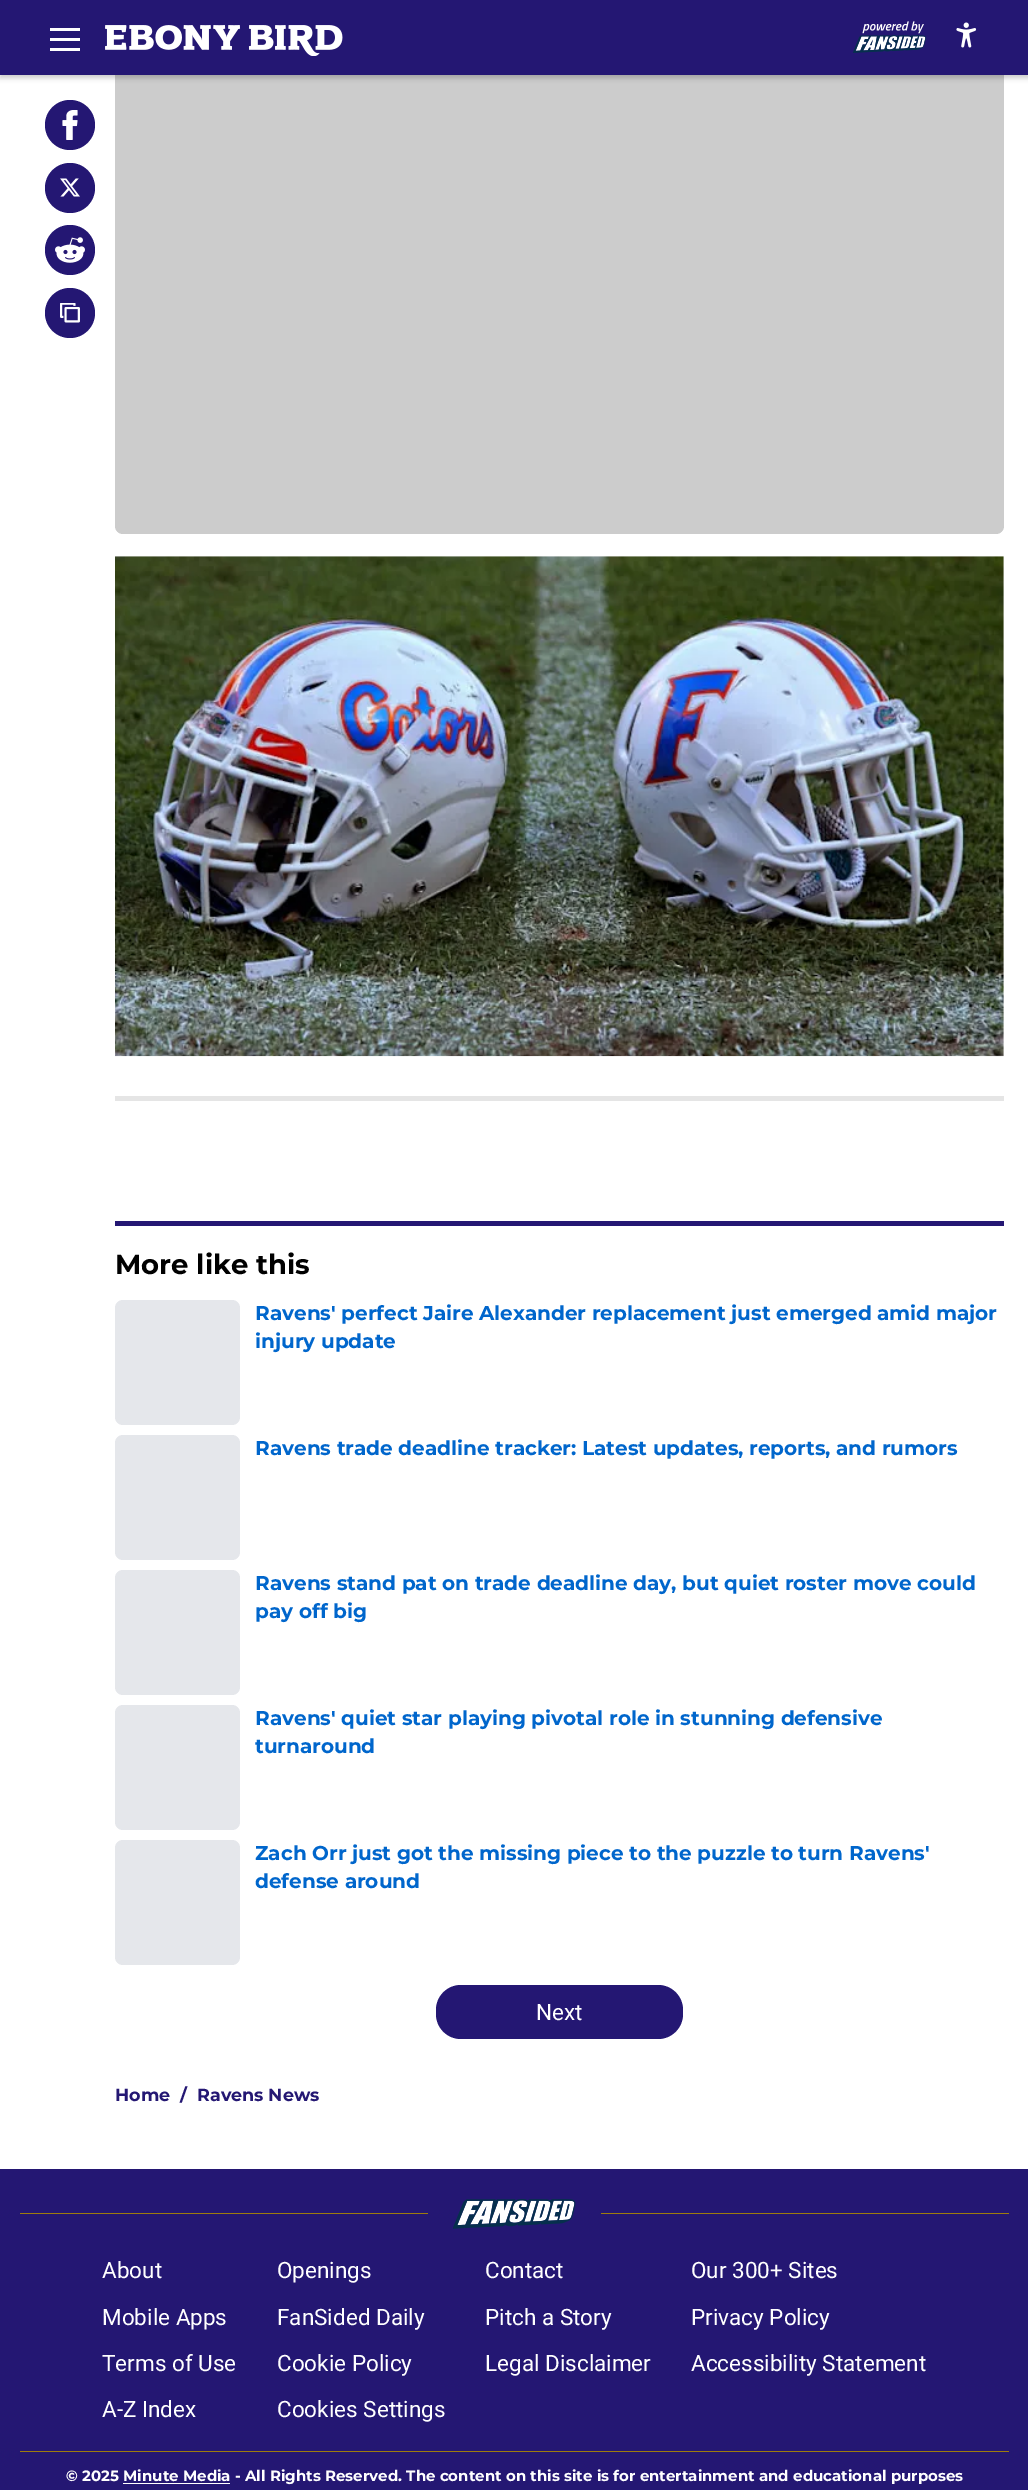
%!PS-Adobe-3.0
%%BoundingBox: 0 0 1028 2490
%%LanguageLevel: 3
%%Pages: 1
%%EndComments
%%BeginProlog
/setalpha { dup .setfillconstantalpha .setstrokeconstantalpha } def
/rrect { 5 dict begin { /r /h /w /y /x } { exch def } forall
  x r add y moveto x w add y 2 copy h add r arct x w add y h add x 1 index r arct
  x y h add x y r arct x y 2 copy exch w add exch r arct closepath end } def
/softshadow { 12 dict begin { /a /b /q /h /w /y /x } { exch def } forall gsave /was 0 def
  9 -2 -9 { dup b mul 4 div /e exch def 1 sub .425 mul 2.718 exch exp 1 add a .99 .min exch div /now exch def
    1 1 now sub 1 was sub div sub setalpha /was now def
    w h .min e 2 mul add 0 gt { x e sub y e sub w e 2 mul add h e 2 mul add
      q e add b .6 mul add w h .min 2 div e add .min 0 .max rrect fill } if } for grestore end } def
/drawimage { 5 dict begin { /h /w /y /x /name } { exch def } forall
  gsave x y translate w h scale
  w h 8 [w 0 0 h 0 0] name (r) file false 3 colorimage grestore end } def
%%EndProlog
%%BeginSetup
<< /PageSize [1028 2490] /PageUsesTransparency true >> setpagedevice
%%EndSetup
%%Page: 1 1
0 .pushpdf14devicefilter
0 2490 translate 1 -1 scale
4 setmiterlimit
1 setgray
0 0 1028 2490 rectfill
0.8 setgray
115 34 889 500 8 rrect fill
0 setgray
0 3 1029 75 0 2.5 0.2 softshadow
0.141 0.09 0.451 setrgbcolor
0 0 1028 75 rectfill
1 setgray
50 28 30 3 rectfill
50 38 30 3 rectfill
50 48 30 3 rectfill
(images/1.raw) 105 25 238 31 drawimage
(images/2.raw) 853 21 73 32 drawimage
(images/3.raw) 956 22 21 26 drawimage
0.141 0.09 0.451 setrgbcolor
newpath 70 125 25 0 360 arc closepath fill
(images/4.raw) 62 110 16 30 drawimage
newpath 70 188 25 0 360 arc closepath fill
(images/5.raw) 60 178 20 19 drawimage
newpath 70 250 25 0 360 arc closepath fill
(images/6.raw) 55 237 30 26 drawimage
newpath 70 313 25 0 360 arc closepath fill
(images/7.raw) 60 303 20 20 drawimage
0.969 setgray
115 556 889 500 rectfill
(images/8.raw) 115 556 889 501 drawimage
0.898 setgray
115 1096 889 5 rectfill
0.141 0.09 0.451 setrgbcolor
115 1221 889 5 rectfill
0.898 0.906 0.922 setrgbcolor
115 1300 125 125 8 rrect fill
115 1435 125 125 8 rrect fill
115 1570 125 125 8 rrect fill
115 1705 125 125 8 rrect fill
115 1840 125 125 8 rrect fill
0.141 0.09 0.451 setrgbcolor
436 1985 247 54 25 rrect fill
0 2169 1028 321 rectfill
0.62 0.486 0.047 setrgbcolor
20 2213 408 1 rectfill
(images/9.raw) 453 2199 123 30 drawimage
601 2213 408 1 rectfill
20 2451 989 1 rectfill
1 setgray
123 2483 107 1 rectfill
/Montserrat-Thin [27.5 0 0 -27.5 0 0] selectfont
0 setgray
115 1274 moveto (More like this) show
/Montserrat-Thin [20 0 0 -20 0 0] selectfont
0 0.4 0.8 setrgbcolor
255 1320 moveto (Ravens' perfect Jaire Alexander replacement just emerged amid major) show
255 1348 moveto (injury update) show
255 1455 moveto (Ravens trade deadline tracker: Latest updates, reports, and rumors) show
255 1590 moveto (Ravens stand pat on trade deadline day, but quiet roster move could) show
255 1618 moveto (pay off big) show
255 1725 moveto (Ravens' quiet star playing pivotal role in stunning defensive) show
255 1753 moveto (turnaround) show
255 1860 moveto (Zach Orr just got the missing piece to the puzzle to turn Ravens') show
255 1888 moveto (defense around) show
/Roboto-Regular [22.5 0 0 -22.5 0 0] selectfont
1 setgray
536 2020 moveto (Next) show
/Montserrat-Thin [17.5 0 0 -17.5 0 0] selectfont
0.141 0.09 0.451 setrgbcolor
115 2101 moveto (Home) show
180 2101 moveto (/) show
197 2101 moveto (Ravens News) show
/Roboto-Regular [22.5 0 0 -22.5 0 0] selectfont
1 setgray
102 2278 moveto (About) show
277 2278 moveto (Openings) show
485 2278 moveto (Contact) show
691 2278 moveto (Our 300+ Sites) show
102 2325 moveto (Mobile Apps) show
277 2325 moveto (FanSided Daily) show
485 2325 moveto (Pitch a Story) show
691 2325 moveto (Privacy Policy) show
102 2371 moveto (Terms of Use) show
277 2371 moveto (Cookie Policy) show
485 2371 moveto (Legal Disclaimer) show
691 2371 moveto (Accessibility Statement) show
102 2417 moveto (A-Z Index) show
277 2417 moveto (Cookies Settings) show
/Montserrat-Thin [15 0 0 -15 0 0] selectfont
66 2481 moveto (© 2025 Minute Media - All Rights Reserved. The content on this site is for entertainment and educational purposes) show
.poppdf14devicefilter showpage
%%EOF
